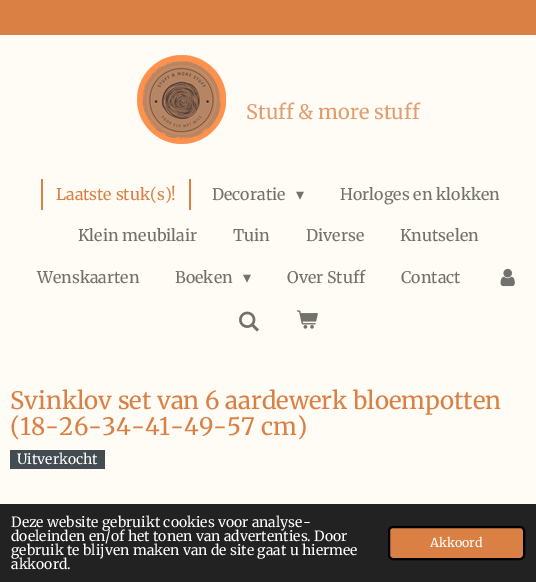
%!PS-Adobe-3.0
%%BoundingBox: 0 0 536 582
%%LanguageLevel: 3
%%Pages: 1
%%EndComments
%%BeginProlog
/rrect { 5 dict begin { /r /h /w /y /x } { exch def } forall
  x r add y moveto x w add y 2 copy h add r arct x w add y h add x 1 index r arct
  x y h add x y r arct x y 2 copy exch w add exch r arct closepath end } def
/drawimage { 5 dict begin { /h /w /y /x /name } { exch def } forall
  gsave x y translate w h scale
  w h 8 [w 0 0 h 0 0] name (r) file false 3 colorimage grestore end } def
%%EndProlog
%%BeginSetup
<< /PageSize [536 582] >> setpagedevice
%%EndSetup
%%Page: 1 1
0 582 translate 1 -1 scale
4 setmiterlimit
1 0.988 0.961 setrgbcolor
0 0 536 582 rectfill
0.855 0.502 0.267 setrgbcolor
0 0 536 35 rectfill
(images/1.raw) 137 55 89 89 drawimage
189 179 2 31 rectfill
41 179 2 31 rectfill
(images/2.raw) 500 268 15 19 drawimage
(images/3.raw) 239 311 20 21 drawimage
(images/4.raw) 297 310 21 19 drawimage
0.259 0.298 0.318 setrgbcolor
10 450 95 19 rectfill
0.133 setgray
0 504 536 78 rectfill
0.855 0.502 0.267 setrgbcolor
389 527 135 32 4 rrect gsave fill grestore
0 setgray
2 setlinewidth
stroke
/Merriweather-Regular [20 0 0 -20 0 0] selectfont
0.886 0.616 0.435 setrgbcolor
246 119 moveto (Stuff & more stuff) show
/Merriweather-Regular [16 0 0 -16 0 0] selectfont
0.855 0.502 0.267 setrgbcolor
56 200 moveto (Laatste stuk\(s\)!) show
0.451 0.443 0.431 setrgbcolor
212 200 moveto (Decoratie) show
/DejaVuSans-Regular [16 0 0 -16 0 0] selectfont
296 200 moveto (▾) show
/Merriweather-Regular [16 0 0 -16 0 0] selectfont
340 200 moveto (Horloges en klokken) show
78 241 moveto (Klein meubilair) show
233 241 moveto (Tuin) show
306 241 moveto (Diverse) show
400 241 moveto (Knutselen) show
37 283 moveto (Wenskaarten) show
175 283 moveto (Boeken) show
/DejaVuSans-Regular [16 0 0 -16 0 0] selectfont
243 283 moveto (▾) show
/Merriweather-Regular [16 0 0 -16 0 0] selectfont
287 283 moveto (Over Stuff) show
401 283 moveto (Contact) show
/Merriweather-Regular [24 0 0 -24 0 0] selectfont
0.855 0.502 0.267 setrgbcolor
10 409 moveto (Svinklov set van 6 aardewerk bloempotten) show
10 435 moveto (\(18-26-34-41-49-57 cm\)) show
/Merriweather-Regular [14 0 0 -14 0 0] selectfont
1 setgray
17 464 moveto (Uitverkocht) show
11 527 moveto (Deze website gebruikt cookies voor analyse-) show
11 541 moveto (doeleinden en/of het tonen van advertenties. Door) show
11 555 moveto (gebruik te blijven maken van de site gaat u hiermee) show
11 569 moveto (akkoord.) show
/Merriweather-Regular [12.5 0 0 -12.5 0 0] selectfont
430 547 moveto (Akkoord) show
showpage
%%EOF
